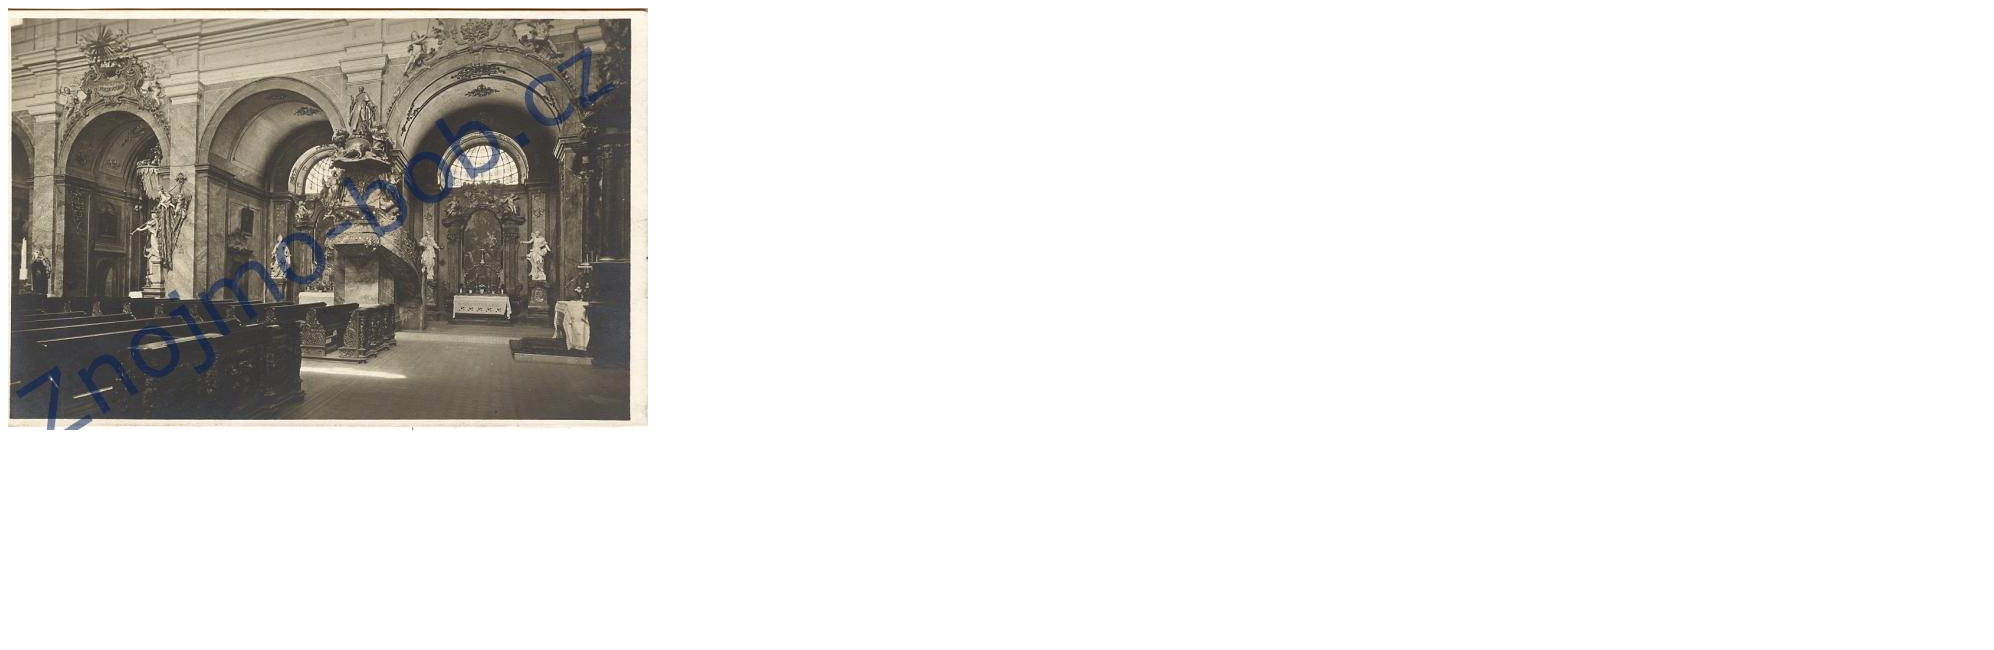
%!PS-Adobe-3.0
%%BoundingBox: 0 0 1994 650
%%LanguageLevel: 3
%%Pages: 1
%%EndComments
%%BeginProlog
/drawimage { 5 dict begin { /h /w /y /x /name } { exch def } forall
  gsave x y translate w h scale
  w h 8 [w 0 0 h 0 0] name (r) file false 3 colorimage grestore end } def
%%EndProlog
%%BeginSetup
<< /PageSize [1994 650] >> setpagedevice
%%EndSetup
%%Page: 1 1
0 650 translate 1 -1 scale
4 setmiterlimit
1 setgray
0 0 1994 650 rectfill
(images/1.raw) 8 8 640 422 drawimage
showpage
%%EOF
